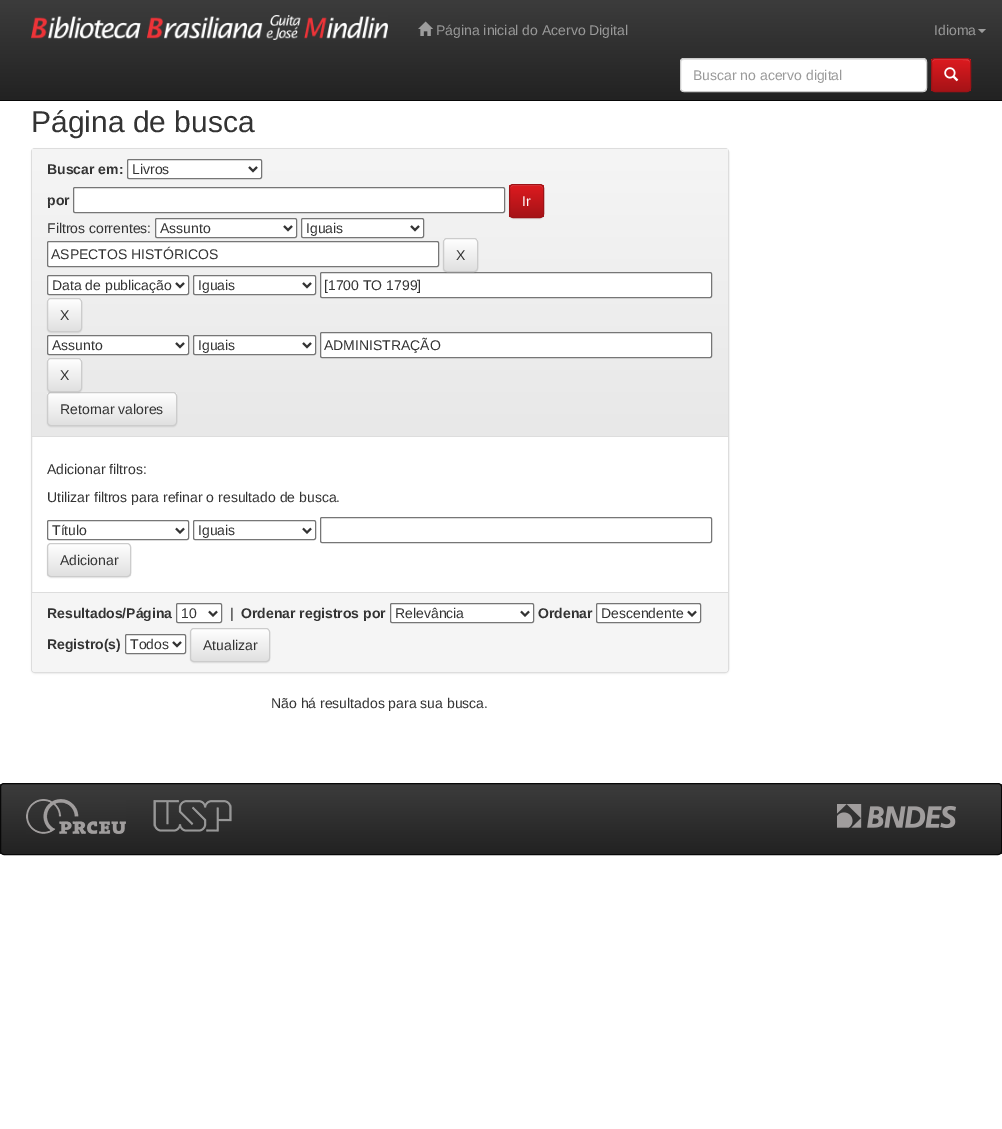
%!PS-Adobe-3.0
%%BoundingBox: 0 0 1002 1129
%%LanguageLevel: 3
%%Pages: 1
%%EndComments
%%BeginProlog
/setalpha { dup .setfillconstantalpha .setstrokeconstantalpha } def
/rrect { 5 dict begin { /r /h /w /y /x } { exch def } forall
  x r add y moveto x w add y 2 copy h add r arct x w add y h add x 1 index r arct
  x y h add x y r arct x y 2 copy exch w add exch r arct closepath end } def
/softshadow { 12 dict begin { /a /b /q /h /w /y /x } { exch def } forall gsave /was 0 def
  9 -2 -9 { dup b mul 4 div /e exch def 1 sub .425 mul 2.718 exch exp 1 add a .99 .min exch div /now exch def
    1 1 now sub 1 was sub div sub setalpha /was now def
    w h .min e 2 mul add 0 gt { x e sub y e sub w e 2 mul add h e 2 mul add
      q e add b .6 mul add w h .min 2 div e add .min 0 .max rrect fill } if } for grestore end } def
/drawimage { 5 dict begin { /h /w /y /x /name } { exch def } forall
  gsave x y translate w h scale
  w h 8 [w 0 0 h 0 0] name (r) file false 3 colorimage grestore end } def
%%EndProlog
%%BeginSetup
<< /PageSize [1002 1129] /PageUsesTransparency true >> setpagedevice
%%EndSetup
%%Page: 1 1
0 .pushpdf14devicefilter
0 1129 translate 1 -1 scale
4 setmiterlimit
1 setgray
0 0 1002 1129 rectfill
gsave newpath 0 0 moveto 1002 0 lineto 1002 100 lineto 0 100 lineto closepath clip newpath
<< /ShadingType 2 /ColorSpace /DeviceRGB /Coords [501 0 501 100] /Extend [true true] /Function << /FunctionType 2 /Domain [0 1] /C0 [0.235 0.235 0.235] /C1 [0.133 0.133 0.133] /N 1 >> >> shfill grestore
0.031 setgray
0 100 1002 1 rectfill
(images/1.raw) 31 15 357 25 drawimage
(images/2.raw) 418 21 15 15 drawimage
0.616 setgray
newpath 978 29 moveto 986 29 lineto 982 33 lineto closepath fill
1 setgray
680 58 247 34 4 rrect fill
0.925 setgray
newpath 684 60 moveto 924 60 lineto 926 61 lineto 926 63 lineto 926 61 925 59 923 59 curveto 684 59 lineto 682 59 681 61 681 63 curveto 681 61 682 60 684 60 curveto closepath fill
0.8 setgray
680.5 58.5 246 33 3.5 rrect stroke
gsave
931 58 40 34 4 rrect clip newpath
gsave newpath 931 59 moveto 971 59 lineto 971 91 lineto 931 91 lineto closepath clip newpath
<< /ShadingType 2 /ColorSpace /DeviceRGB /Coords [951 59 951 91] /Extend [true true] /Function << /FunctionType 2 /Domain [0 1] /C0 [0.867 0.102 0.122] /C1 [0.651 0.075 0.09] /N 1 >> >> shfill grestore
grestore
0.882 0.235 0.255 setrgbcolor
newpath 935 60 moveto 962 60 lineto 967.5 60 969.5 60.5 970 62.5 curveto 970 57.5 965.5 59 961.5 59 curveto 940.5 59 lineto 937 59 932 58 932 62.5 curveto 932.5 61 933.5 60 935 60 curveto closepath fill
0.616 0.071 0.086 setrgbcolor
931.5 58.5 39 33 3.5 rrect stroke
(images/3.raw) 944 67 15 15 drawimage
0 setgray
31 149 698 525 4 1 0.05 softshadow
1 setgray
31.5 148.5 697 524 3.5 rrect gsave fill grestore
0.867 setgray
stroke
gsave newpath 35 149 moveto 725 149 lineto 726.5 149 728 150.5 728 152 curveto 728 436 lineto 32 436 lineto 32 152 lineto 32 150.5 33.5 149 35 149 curveto closepath clip newpath
<< /ShadingType 2 /ColorSpace /DeviceRGB /Coords [380 149 380 436] /Extend [true true] /Function << /FunctionType 2 /Domain [0 1] /C0 [0.961 0.961 0.961] /C1 [0.91 0.91 0.91] /N 1 >> >> shfill grestore
32 436 696 1 rectfill
1 setgray
127.5 159.5 134 19 1.5 rrect gsave fill grestore
0.463 setgray
stroke
0.2 setgray
2 setlinewidth
newpath 249 167 moveto 253 171 lineto 257 167 lineto stroke
1 setgray
73.5 187.5 431 25 1.5 rrect gsave fill grestore
0.463 setgray
1 setlinewidth
stroke
0 setgray
509 185 35 34 4 0.5 0.07 softshadow
gsave
509 184 35 34 4 rrect clip newpath
gsave newpath 509 185 moveto 544 185 lineto 544 217 lineto 509 217 lineto closepath clip newpath
<< /ShadingType 2 /ColorSpace /DeviceRGB /Coords [527 185 527 217] /Extend [true true] /Function << /FunctionType 2 /Domain [0 1] /C0 [0.867 0.102 0.122] /C1 [0.651 0.075 0.09] /N 1 >> >> shfill grestore
grestore
0.882 0.235 0.255 setrgbcolor
newpath 513 186 moveto 540 186 lineto 542 186 543 187 543 189 curveto 543 184 539.5 185 535.5 185 curveto 517.5 185 lineto 513.5 185 510 184 510 189 curveto 510 187 511 186 513 186 curveto closepath fill
0.616 0.071 0.086 setrgbcolor
509.5 184.5 34 33 3.5 rrect stroke
1 setgray
155.5 218.5 141 19 1.5 rrect gsave fill grestore
0.463 setgray
stroke
0.2 setgray
2 setlinewidth
newpath 284 226 moveto 288 230 lineto 292 226 lineto stroke
1 setgray
301.5 218.5 122 19 1.5 rrect gsave fill grestore
0.463 setgray
1 setlinewidth
stroke
0.2 setgray
2 setlinewidth
newpath 411 226 moveto 415 230 lineto 419 226 lineto stroke
1 setgray
47.5 241.5 391 25 1.5 rrect gsave fill grestore
0.463 setgray
1 setlinewidth
stroke
1 setgray
320.5 272.5 391 25 1.5 rrect gsave fill grestore
0.463 setgray
stroke
0 setgray
443 239 35 34 4 0.5 0.07 softshadow
gsave
443 238 35 34 4 rrect clip newpath
gsave newpath 443 239 moveto 478 239 lineto 478 271 lineto 443 271 lineto closepath clip newpath
<< /ShadingType 2 /ColorSpace /DeviceRGB /Coords [461 239 461 271] /Extend [true true] /Function << /FunctionType 2 /Domain [0 1] /C0 [1 1 1] /C1 [0.878 0.878 0.878] /N 1 >> >> shfill grestore
grestore
0.8 setgray
443.5 238.5 34 33 3.5 rrect stroke
1 setgray
47.5 275.5 141 19 1.5 rrect gsave fill grestore
0.463 setgray
stroke
0.2 setgray
2 setlinewidth
newpath 176 283 moveto 180 287 lineto 184 283 lineto stroke
1 setgray
193.5 275.5 122 19 1.5 rrect gsave fill grestore
0.463 setgray
1 setlinewidth
stroke
0.2 setgray
2 setlinewidth
newpath 303 283 moveto 307 287 lineto 311 283 lineto stroke
1 setgray
47.5 335.5 141 19 1.5 rrect gsave fill grestore
0.463 setgray
1 setlinewidth
stroke
0 setgray
47 299 35 34 4 0.5 0.07 softshadow
gsave
47 298 35 34 4 rrect clip newpath
gsave newpath 47 299 moveto 82 299 lineto 82 331 lineto 47 331 lineto closepath clip newpath
<< /ShadingType 2 /ColorSpace /DeviceRGB /Coords [65 299 65 331] /Extend [true true] /Function << /FunctionType 2 /Domain [0 1] /C0 [1 1 1] /C1 [0.878 0.878 0.878] /N 1 >> >> shfill grestore
grestore
0.8 setgray
47.5 298.5 34 33 3.5 rrect stroke
0.2 setgray
2 setlinewidth
newpath 176 343 moveto 180 347 lineto 184 343 lineto stroke
1 setgray
193.5 335.5 122 19 1.5 rrect gsave fill grestore
0.463 setgray
1 setlinewidth
stroke
0.2 setgray
2 setlinewidth
newpath 303 343 moveto 307 347 lineto 311 343 lineto stroke
1 setgray
320.5 332.5 391 25 1.5 rrect gsave fill grestore
0.463 setgray
1 setlinewidth
stroke
0 setgray
47 393 130 34 4 0.5 0.07 softshadow
gsave
47 392 130 34 4 rrect clip newpath
gsave newpath 47 393 moveto 177 393 lineto 177 425 lineto 47 425 lineto closepath clip newpath
<< /ShadingType 2 /ColorSpace /DeviceRGB /Coords [112 393 112 425] /Extend [true true] /Function << /FunctionType 2 /Domain [0 1] /C0 [1 1 1] /C1 [0.878 0.878 0.878] /N 1 >> >> shfill grestore
grestore
0.8 setgray
47.5 392.5 129 33 3.5 rrect stroke
0 setgray
47 359 35 34 4 0.5 0.07 softshadow
gsave
47 358 35 34 4 rrect clip newpath
gsave newpath 47 359 moveto 82 359 lineto 82 391 lineto 47 391 lineto closepath clip newpath
<< /ShadingType 2 /ColorSpace /DeviceRGB /Coords [65 359 65 391] /Extend [true true] /Function << /FunctionType 2 /Domain [0 1] /C0 [1 1 1] /C1 [0.878 0.878 0.878] /N 1 >> >> shfill grestore
grestore
0.8 setgray
47.5 358.5 34 33 3.5 rrect stroke
0.463 setgray
47.5 520.5 141 19 1.5 rrect stroke
0.2 setgray
2 setlinewidth
newpath 176 528.5 moveto 180 532.5 lineto 184 528.5 lineto stroke
0.463 setgray
1 setlinewidth
193.5 520.5 122 19 1.5 rrect stroke
0.2 setgray
2 setlinewidth
newpath 303 528.5 moveto 307 532.5 lineto 311 528.5 lineto stroke
0.463 setgray
1 setlinewidth
320.5 517.5 391 25 1.5 rrect stroke
0 setgray
47 544 84 34 4 0.5 0.07 softshadow
gsave
47 543 84 34 4 rrect clip newpath
gsave newpath 47 544 moveto 131 544 lineto 131 576 lineto 47 576 lineto closepath clip newpath
<< /ShadingType 2 /ColorSpace /DeviceRGB /Coords [89 544 89 576] /Extend [true true] /Function << /FunctionType 2 /Domain [0 1] /C0 [1 1 1] /C1 [0.878 0.878 0.878] /N 1 >> >> shfill grestore
grestore
0.8 setgray
47.5 543.5 83 33 3.5 rrect stroke
0.961 setgray
newpath 32 592 moveto 728 592 lineto 728 669 lineto 728 670.5 726.5 672 725 672 curveto 35 672 lineto 33.5 672 32 670.5 32 669 curveto closepath fill
0.867 setgray
32 592 696 1 rectfill
1 setgray
176.5 603.5 45 19 1.5 rrect gsave fill grestore
0.463 setgray
stroke
0.2 setgray
2 setlinewidth
newpath 209 611.5 moveto 213 615.5 lineto 217 611.5 lineto stroke
1 setgray
390.5 603.5 143 19 1.5 rrect gsave fill grestore
0.463 setgray
1 setlinewidth
stroke
0.2 setgray
2 setlinewidth
newpath 521 611.5 moveto 525 615.5 lineto 529 611.5 lineto stroke
1 setgray
596.5 603.5 104 19 1.5 rrect gsave fill grestore
0.463 setgray
1 setlinewidth
stroke
0.2 setgray
2 setlinewidth
newpath 688 611.5 moveto 692 615.5 lineto 696 611.5 lineto stroke
1 setgray
125.5 634.5 60 19 1.5 rrect gsave fill grestore
0.463 setgray
1 setlinewidth
stroke
0.2 setgray
2 setlinewidth
newpath 173 642 moveto 177 646 lineto 181 642 lineto stroke
0 setgray
190 629 80 34 4 0.5 0.07 softshadow
gsave
190 628 80 34 4 rrect clip newpath
gsave newpath 190 629 moveto 270 629 lineto 270 661 lineto 190 661 lineto closepath clip newpath
<< /ShadingType 2 /ColorSpace /DeviceRGB /Coords [230 629 230 661] /Extend [true true] /Function << /FunctionType 2 /Domain [0 1] /C0 [1 1 1] /C1 [0.878 0.878 0.878] /N 1 >> >> shfill grestore
grestore
0.8 setgray
1 setlinewidth
190.5 628.5 79 33 3.5 rrect stroke
gsave
0 783 1002 72 4 rrect clip newpath
gsave newpath 0 784 moveto 1002 784 lineto 1002 854 lineto 0 854 lineto closepath clip newpath
<< /ShadingType 2 /ColorSpace /DeviceRGB /Coords [501 784 501 854] /Extend [true true] /Function << /FunctionType 2 /Domain [0 1] /C0 [0.235 0.235 0.235] /C1 [0.133 0.133 0.133] /N 1 >> >> shfill grestore
grestore
0.031 setgray
0.5 783.5 1001 71 3.5 rrect stroke
(images/4.raw) 26 799 100 35 drawimage
(images/5.raw) 153 800 79 32 drawimage
(images/6.raw) 837 804 119 24 drawimage
/LiberationSans-Regular [14 0 0 -14 0 0] selectfont
0.6 setgray
436 35 moveto (Página inicial do Acervo Digital) show
934 35 moveto (Idioma) show
693 80 moveto (Buscar no acervo digital) show
/LiberationSans-Regular [30 0 0 -30 0 0] selectfont
0.2 setgray
31 132 moveto (Página de busca) show
/LiberationSans-Bold [14 0 0 -14 0 0] selectfont
47 174 moveto (Buscar em:) show
/LiberationSans-Regular [14 0 0 -14 0 0] selectfont
132 174 moveto (Livros) show
/LiberationSans-Bold [14 0 0 -14 0 0] selectfont
47 205 moveto (por) show
/LiberationSans-Regular [14 0 0 -14 0 0] selectfont
1 setgray
522 206 moveto (Ir) show
0.2 setgray
47 233 moveto (Filtros correntes:) show
160 233 moveto (Assunto) show
306 233 moveto (Iguais) show
51 259 moveto (ASPECTOS HISTÓRICOS) show
456 260 moveto (X) show
52 290 moveto (Data de publicação) show
198 290 moveto (Iguais) show
324 290 moveto ([1700 TO 1799]) show
60 320 moveto (X) show
52 350 moveto (Assunto) show
198 350 moveto (Iguais) show
324 350 moveto (ADMINISTRAÇÃO) show
60 380 moveto (X) show
60 414 moveto (Retornar valores) show
47 474 moveto (Adicionar filtros:) show
47 502 moveto (Utilizar filtros para refinar o resultado de busca.) show
52 535 moveto (Título) show
198 535 moveto (Iguais) show
60 565 moveto (Adicionar) show
/LiberationSans-Bold [14 0 0 -14 0 0] selectfont
47 618 moveto (Resultados/Página) show
/LiberationSans-Regular [14 0 0 -14 0 0] selectfont
181 618 moveto (10) show
230 618 moveto (|) show
/LiberationSans-Bold [14 0 0 -14 0 0] selectfont
241 618 moveto (Ordenar registros por) show
/LiberationSans-Regular [14 0 0 -14 0 0] selectfont
395 618 moveto (Relevância) show
/LiberationSans-Bold [14 0 0 -14 0 0] selectfont
538 618 moveto (Ordenar) show
/LiberationSans-Regular [14 0 0 -14 0 0] selectfont
601 618 moveto (Descendente) show
/LiberationSans-Bold [14 0 0 -14 0 0] selectfont
47 649 moveto (Registro\(s\)) show
/LiberationSans-Regular [14 0 0 -14 0 0] selectfont
130 649 moveto (Todos) show
203 650 moveto (Atualizar) show
271 708 moveto (Não há resultados para sua busca.) show
.poppdf14devicefilter showpage
%%EOF
